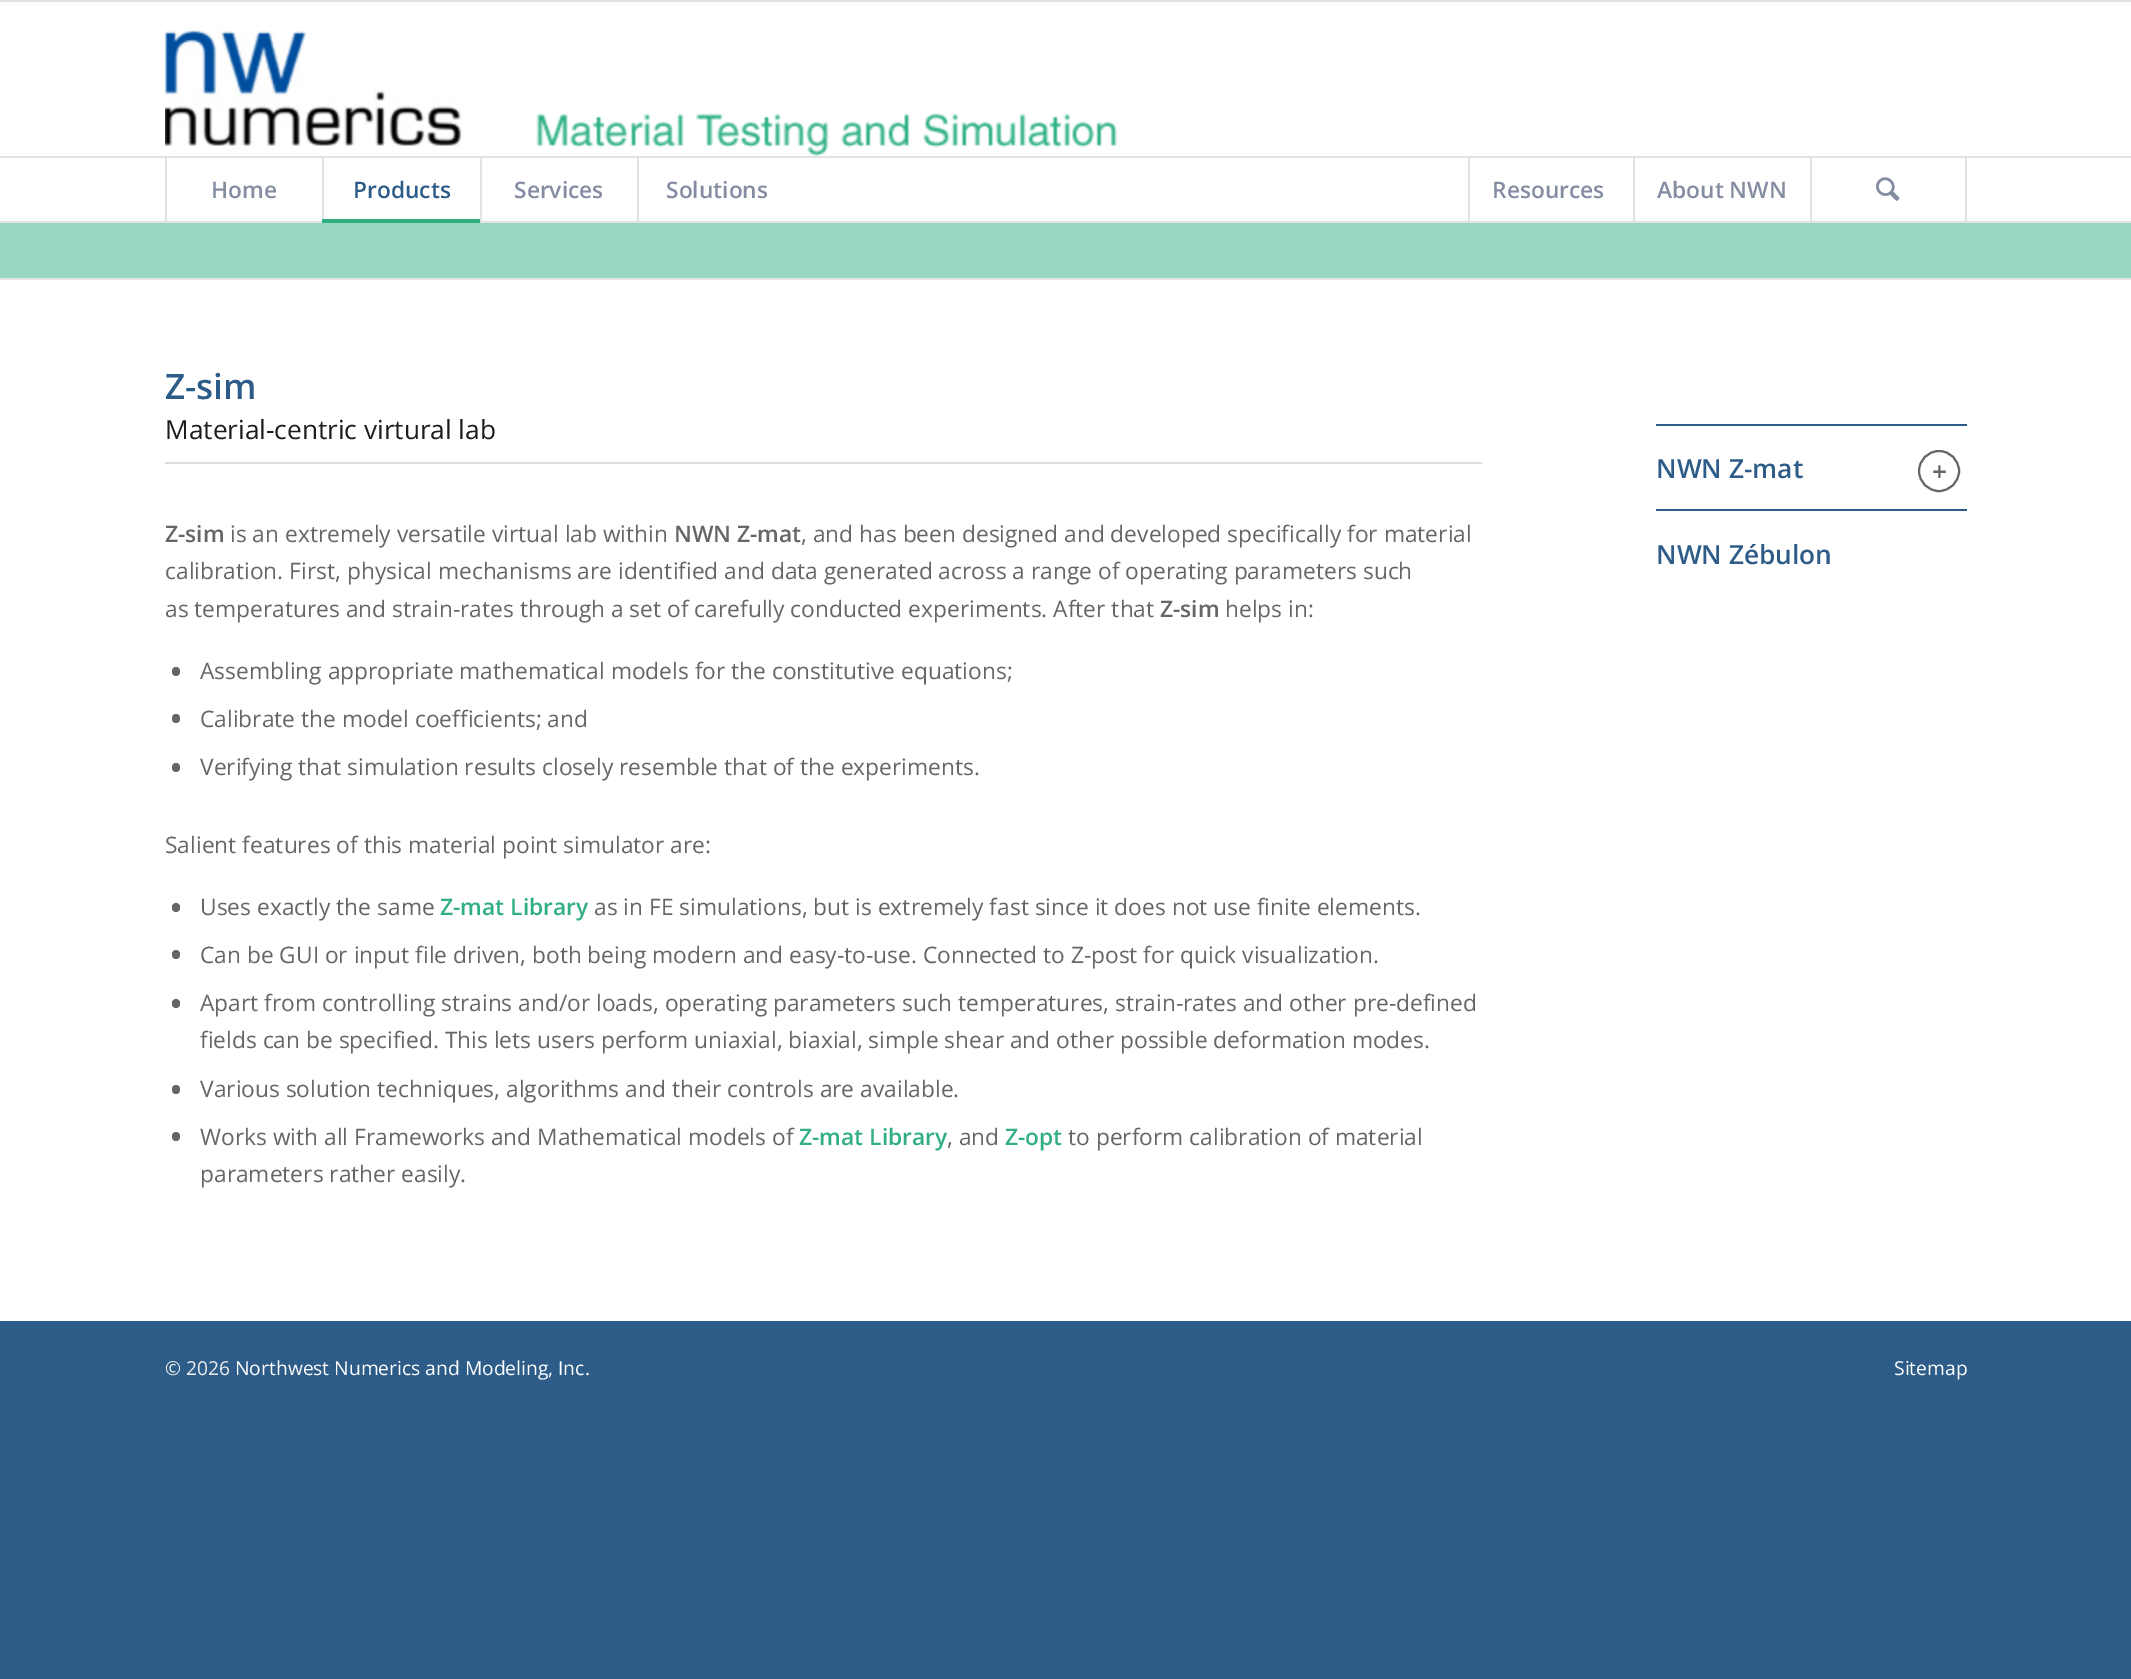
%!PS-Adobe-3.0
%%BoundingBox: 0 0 2131 1679
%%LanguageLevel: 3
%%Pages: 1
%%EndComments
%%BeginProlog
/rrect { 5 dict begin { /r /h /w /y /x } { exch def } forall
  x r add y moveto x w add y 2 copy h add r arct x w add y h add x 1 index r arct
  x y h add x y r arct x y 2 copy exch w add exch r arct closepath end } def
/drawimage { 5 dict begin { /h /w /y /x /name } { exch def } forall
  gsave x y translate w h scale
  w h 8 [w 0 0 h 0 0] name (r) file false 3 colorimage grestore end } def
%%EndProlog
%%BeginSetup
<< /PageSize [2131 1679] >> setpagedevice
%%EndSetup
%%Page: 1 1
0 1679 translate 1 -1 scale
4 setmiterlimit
0.176 0.361 0.533 setrgbcolor
0 0 2131 1679 rectfill
0.89 setgray
0 0 2131 2 rectfill
0 221 2131 2 rectfill
1 setgray
0 2 2131 215 rectfill
(images/1.raw) 165 30 297 116 drawimage
(images/2.raw) 536 113 582 43 drawimage
0.89 setgray
0 156 2131 2 rectfill
0.98 0.992 0.988 setrgbcolor
0 217 2131 4 rectfill
0.89 setgray
165 158 2 63 rectfill
322 158 2 63 rectfill
0.196 0.686 0.506 setrgbcolor
322 219 158 4 rectfill
0.89 setgray
480 158 2 63 rectfill
637 158 2 63 rectfill
1468 158 2 63 rectfill
1633 158 2 63 rectfill
1965 158 2 63 rectfill
1810 158 2 63 rectfill
(images/3.raw) 1876 177 24 24 drawimage
1 setgray
0 280 2131 1041 rectfill
0.596 0.843 0.753 setrgbcolor
0 223 2131 55 rectfill
0.89 setgray
0 278 2131 2 rectfill
0.867 setgray
165 462 1317 2 rectfill
0.4 setgray
172 667 8 9 4 rrect fill
172 714 8 9 4 rrect fill
172 763 8 9 4 rrect fill
172 903 8 9 4 rrect fill
172 950 8 9 4 rrect fill
172 999 8 9 4 rrect fill
172 1085 8 9 4 rrect fill
172 1132 8 9 4 rrect fill
0.176 0.361 0.533 setrgbcolor
1656 424 311 2 rectfill
0.4 setgray
2 setlinewidth
newpath 1939 471 20 0 360 arc closepath stroke
0.176 0.361 0.533 setrgbcolor
1656 509 311 2 rectfill
/OpenSans-SemiBold [22.75 0 0 -22.75 0 0] selectfont
0.518 0.549 0.635 setrgbcolor
211 198 moveto (Home) show
0.176 0.361 0.533 setrgbcolor
353 198 moveto (Products) show
0.518 0.549 0.635 setrgbcolor
514 198 moveto (Services) show
666 198 moveto (Solutions) show
1492 198 moveto (Resources) show
1657 198 moveto (About NWN) show
/OpenSans-SemiBold [35 0 0 -35 0 0] selectfont
0.176 0.361 0.533 setrgbcolor
165 399 moveto (Z-sim) show
/OpenSans-Regular [26.25 0 0 -26.25 0 0] selectfont
0.114 0.114 0.106 setrgbcolor
165 439 moveto (Material-centric virtural lab) show
/OpenSans-SemiBold [22.75 0 0 -22.75 0 0] selectfont
0.4 setgray
165 542 moveto (Z-sim) show
/OpenSans-Regular [22.75 0 0 -22.75 0 0] selectfont
230 542 moveto (is an extremely versatile virtual lab within) show
/OpenSans-SemiBold [22.75 0 0 -22.75 0 0] selectfont
674 542 moveto (NWN Z-mat) show
/OpenSans-Regular [22.75 0 0 -22.75 0 0] selectfont
801 542 moveto (, and has been designed and developed specifically for material) show
165 579 moveto (calibration. First, physical mechanisms are identified and data generated across a range of operating parameters such) show
165 617 moveto (as temperatures and strain-rates through a set of carefully conducted experiments. After that) show
/OpenSans-SemiBold [22.75 0 0 -22.75 0 0] selectfont
1160 617 moveto (Z-sim) show
/OpenSans-Regular [22.75 0 0 -22.75 0 0] selectfont
1225 617 moveto (helps in:) show
200 679 moveto (Assembling appropriate mathematical models for the constitutive equations;) show
200 727 moveto (Calibrate the model coefficients; and) show
200 775 moveto (Verifying that simulation results closely resemble that of the experiments.) show
165 853 moveto (Salient features of this material point simulator are:) show
200 915 moveto (Uses exactly the same) show
/OpenSans-SemiBold [22.75 0 0 -22.75 0 0] selectfont
0.196 0.686 0.506 setrgbcolor
440 915 moveto (Z-mat Library) show
/OpenSans-Regular [22.75 0 0 -22.75 0 0] selectfont
0.4 setgray
594 915 moveto (as in FE simulations, but is extremely fast since it does not use finite elements.) show
200 963 moveto (Can be GUI or input file driven, both being modern and easy-to-use. Connected to Z-post for quick visualization.) show
200 1011 moveto (Apart from controlling strains and/or loads, operating parameters such temperatures, strain-rates and other pre-defined) show
200 1048 moveto (fields can be specified. This lets users perform uniaxial, biaxial, simple shear and other possible deformation modes.) show
200 1097 moveto (Various solution techniques, algorithms and their controls are available.) show
200 1145 moveto (Works with all Frameworks and Mathematical models of) show
/OpenSans-SemiBold [22.75 0 0 -22.75 0 0] selectfont
0.196 0.686 0.506 setrgbcolor
799 1145 moveto (Z-mat Library) show
/OpenSans-Regular [22.75 0 0 -22.75 0 0] selectfont
0.4 setgray
947 1145 moveto (, and) show
/OpenSans-SemiBold [22.75 0 0 -22.75 0 0] selectfont
0.196 0.686 0.506 setrgbcolor
1005 1145 moveto (Z-opt) show
/OpenSans-Regular [22.75 0 0 -22.75 0 0] selectfont
0.4 setgray
1068 1145 moveto (to perform calibration of material) show
200 1182 moveto (parameters rather easily.) show
/OpenSans-SemiBold [26.25 0 0 -26.25 0 0] selectfont
0.176 0.361 0.533 setrgbcolor
1656 478 moveto (NWN Z-mat) show
0.4 setgray
1932 481 moveto (+) show
0.176 0.361 0.533 setrgbcolor
1656 564 moveto (NWN Zébulon) show
/OpenSans-Regular [19.25 0 0 -19.25 0 0] selectfont
0.933 setgray
165 1375 moveto (© 2026) show
1 setgray
235 1375 moveto (Northwest Numerics and Modeling, Inc.) show
1894 1375 moveto (Sitemap) show
showpage
%%EOF
